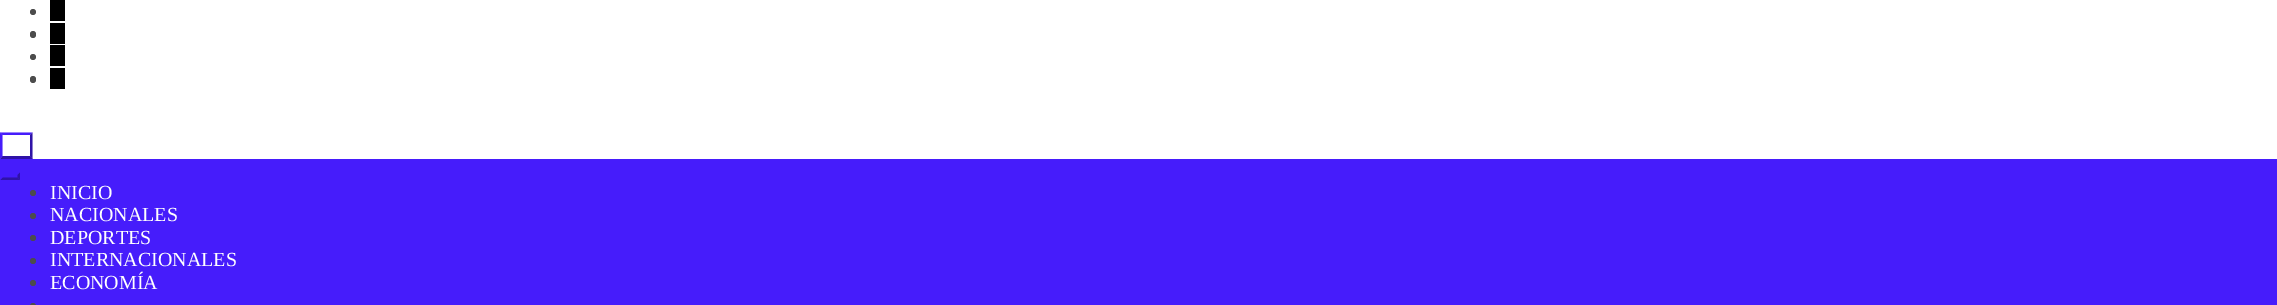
%!PS-Adobe-3.0
%%BoundingBox: 0 0 2277 305
%%LanguageLevel: 3
%%Pages: 1
%%EndComments
%%BeginProlog
/rrect { 5 dict begin { /r /h /w /y /x } { exch def } forall
  x r add y moveto x w add y 2 copy h add r arct x w add y h add x 1 index r arct
  x y h add x y r arct x y 2 copy exch w add exch r arct closepath end } def
%%EndProlog
%%BeginSetup
<< /PageSize [2277 305] >> setpagedevice
%%EndSetup
%%Page: 1 1
0 305 translate 1 -1 scale
4 setmiterlimit
1 setgray
0 0 2277 305 rectfill
0.298 setgray
newpath 33 12 3 0 360 arc closepath fill
0 setgray
50 0 15 21 rectfill
0.298 setgray
30 31 6 7 3 rrect fill
0 setgray
50 23 15 21 rectfill
0.298 setgray
newpath 33 57 3 0 360 arc closepath fill
0 setgray
50 45 15 21 rectfill
0.298 setgray
30 76 6 7 3 rrect fill
0 setgray
50 68 15 21 rectfill
0.275 0.11 0.984 setrgbcolor
newpath 0 132.5 moveto 32.5 132.5 lineto 30 135 lineto 2.5 135 lineto closepath fill
0.184 0.075 0.655 setrgbcolor
newpath 32.5 132.5 moveto 32.5 159 lineto 30 156 lineto 30 135 lineto closepath fill
newpath 32.5 159 moveto 0 159 lineto 2.5 156 lineto 30 156 lineto closepath fill
0.275 0.11 0.984 setrgbcolor
newpath 0 159 moveto 0 132.5 lineto 2.5 135 lineto 2.5 156 lineto closepath fill
0 159 2277 146 rectfill
0.184 0.075 0.655 setrgbcolor
newpath 20 172.5 moveto 20 180 lineto 17.5 177.5 lineto 17.5 175 lineto closepath fill
newpath 20 180 moveto 0 180 lineto 2.5 177.5 lineto 17.5 177.5 lineto closepath fill
0.275 0.11 0.984 setrgbcolor
newpath 0 180 moveto 0 172.5 lineto 2.5 175 lineto 2.5 177.5 lineto closepath fill
0.298 setgray
newpath 33 193 3 0 360 arc closepath fill
newpath 33 216 3 0 360 arc closepath fill
newpath 33 238 3 0 360 arc closepath fill
newpath 33 261 3 0 360 arc closepath fill
newpath 33 283 3 0 360 arc closepath fill
30 303 6 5 3 rrect fill
/LiberationSerif-Regular [20 0 0 -20 0 0] selectfont
1 setgray
50 199 moveto (INICIO) show
50 221 moveto (NACIONALES) show
50 244 moveto (DEPORTES) show
50 266 moveto (INTERNACIONALES) show
50 289 moveto (ECONOMÍA) show
showpage
%%EOF
